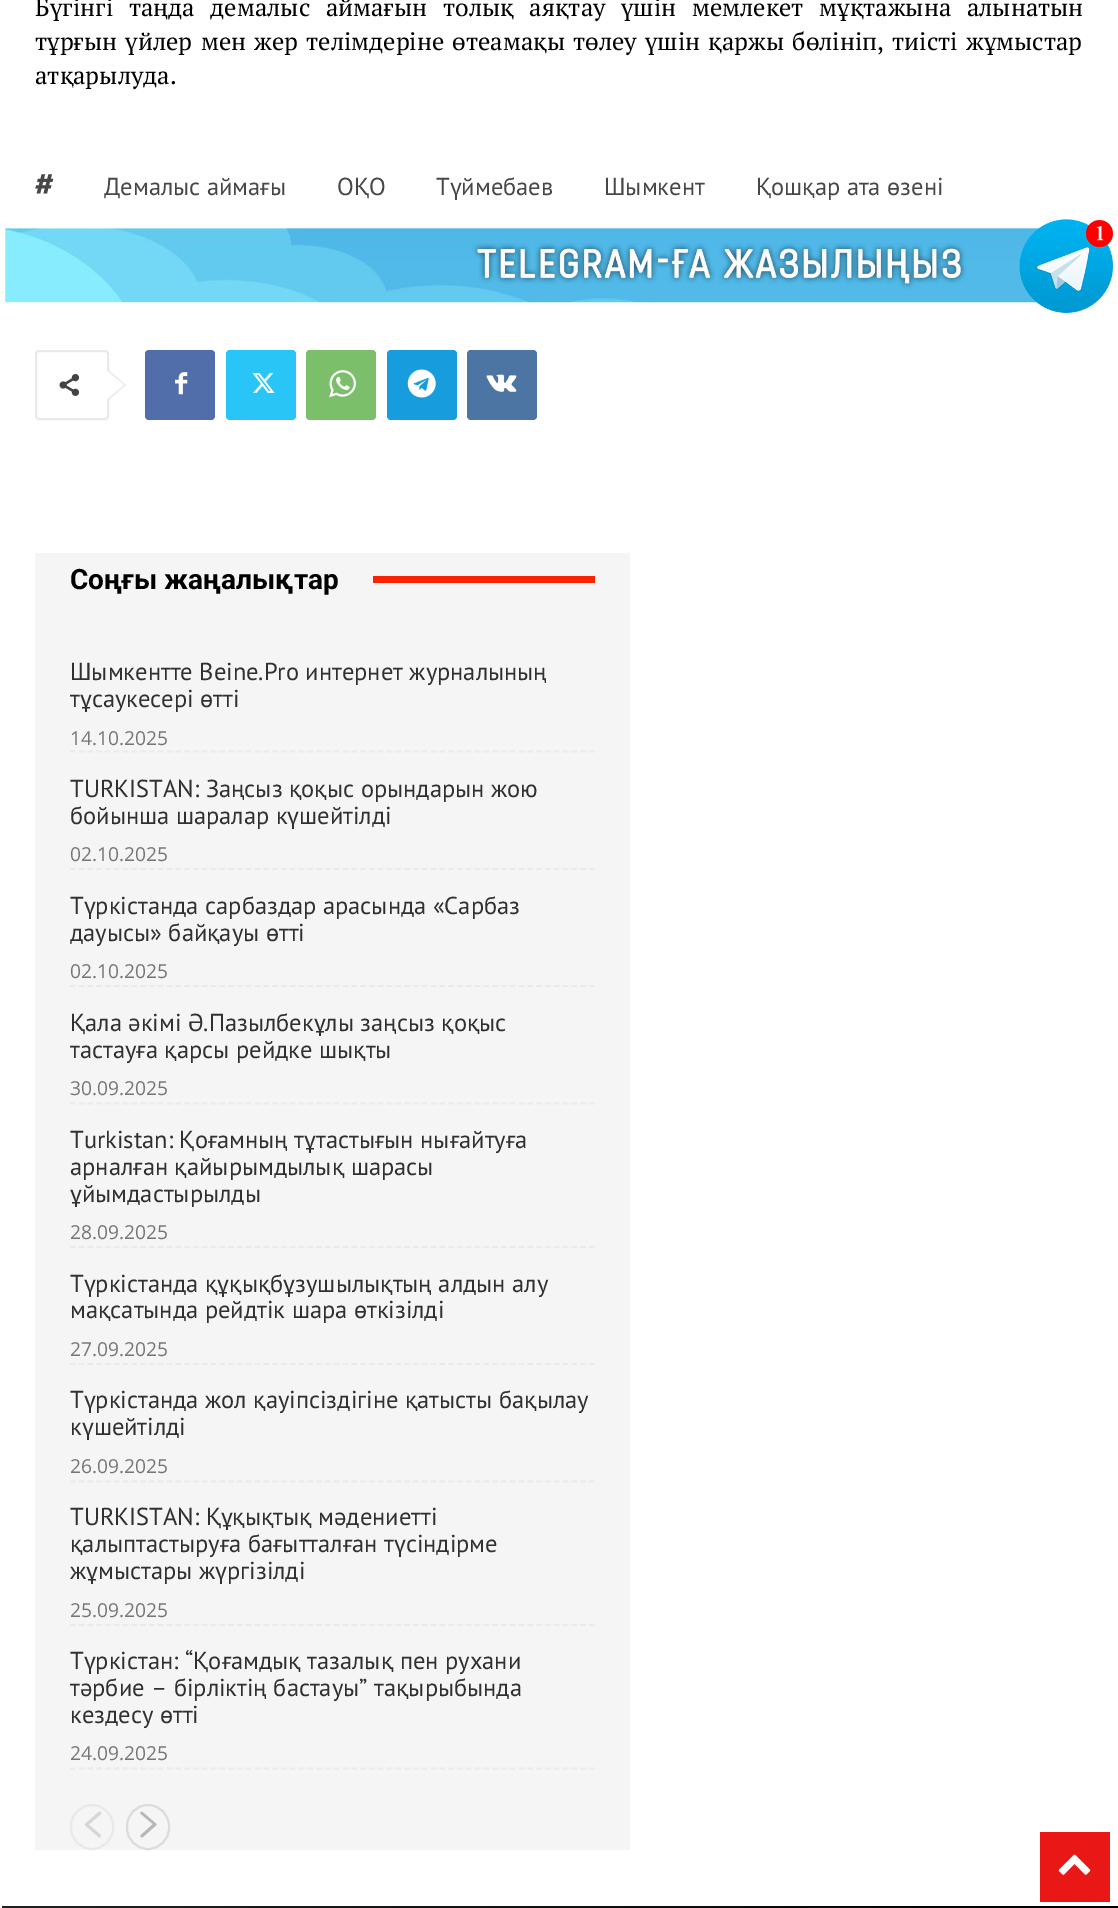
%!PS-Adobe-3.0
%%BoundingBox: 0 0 1118 1908
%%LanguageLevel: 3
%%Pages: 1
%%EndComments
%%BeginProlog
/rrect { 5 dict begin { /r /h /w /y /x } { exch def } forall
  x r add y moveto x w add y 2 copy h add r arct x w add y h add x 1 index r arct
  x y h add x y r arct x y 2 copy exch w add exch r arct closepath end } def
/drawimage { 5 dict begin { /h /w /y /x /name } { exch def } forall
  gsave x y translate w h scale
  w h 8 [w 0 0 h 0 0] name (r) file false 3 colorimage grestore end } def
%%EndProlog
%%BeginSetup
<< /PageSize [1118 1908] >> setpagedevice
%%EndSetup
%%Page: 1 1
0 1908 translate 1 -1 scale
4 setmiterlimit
1 setgray
0 0 1118 1908 rectfill
(images/1.raw) 5 219 1108 94 drawimage
0.914 setgray
2 setlinewidth
36 351 72 68 3 rrect stroke
newpath 107 401 moveto 107 369 lineto 126 385 lineto closepath fill
(images/2.raw) 59 374 21 22 drawimage
1 setgray
newpath 107 399 moveto 107 371 lineto 124 385 lineto closepath fill
0.318 0.431 0.671 setrgbcolor
145 350 70 70 4 rrect fill
(images/3.raw) 175 372 13 23 drawimage
0.161 0.773 0.965 setrgbcolor
226 350 70 70 4 rrect fill
(images/4.raw) 252 373 23 20 drawimage
0.482 0.749 0.416 setrgbcolor
306 350 70 70 4 rrect fill
(images/5.raw) 329 370 27 28 drawimage
0.09 0.612 0.871 setrgbcolor
387 350 70 70 4 rrect fill
(images/6.raw) 407 369 29 29 drawimage
0.298 0.459 0.639 setrgbcolor
467 350 70 70 4 rrect fill
(images/7.raw) 486 374 31 18 drawimage
0.961 setgray
35 553 595 1297 rectfill
0.976 0.137 0.008 setrgbcolor
373 576 222 7 rectfill
0.918 setgray
1.8 setlinewidth
[5.25 3.55] 0 setdash
newpath 70 751.5 moveto 595 751.5 lineto stroke
newpath 70 869 moveto 595 869 lineto stroke
newpath 70 986 moveto 595 986 lineto stroke
newpath 70 1103.5 moveto 595 1103.5 lineto stroke
newpath 70 1247 moveto 595 1247 lineto stroke
newpath 70 1364 moveto 595 1364 lineto stroke
newpath 70 1481.5 moveto 595 1481.5 lineto stroke
newpath 70 1625 moveto 595 1625 lineto stroke
newpath 70 1768.5 moveto 595 1768.5 lineto stroke
0.914 setgray
2 setlinewidth
[] 0 setdash
71 1805 42 44 21 rrect stroke
(images/8.raw) 84 1811 18 27 drawimage
0.863 setgray
127 1805 42 44 21 rrect stroke
(images/9.raw) 140 1811 17 27 drawimage
gsave newpath 2 1906 moveto 1118 1906 lineto 1118 1908 lineto 2 1908 lineto closepath clip newpath
<< /ShadingType 2 /ColorSpace /DeviceRGB /Coords [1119 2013 0.9 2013] /Extend [true true] /Function << /FunctionType 2 /Domain [0 1] /C0 [0 0 0] /C1 [0.133 0.133 0.133] /N 1 >> >> shfill grestore
0.918 0.09 0.09 setrgbcolor
1040 1832 70 70 rectfill
(images/10.raw) 1058 1854 33 21 drawimage
/PTSerif-Regular [24.5 0 0 -24.5 0 0] selectfont
0 setgray
35 16 moveto 9.75 0 32 (Бүгінгі таңда демалыс аймағын толық аяқтау үшін мемлекет мұқтажына алынатын) widthshow
35 50 moveto 2.25 0 32 (тұрғын үйлер мен жер телімдеріне өтеамақы төлеу үшін қаржы бөлініп, тиісті жұмыстар) widthshow
35 84 moveto (атқарылуда.) show
/PTSansCaption-Bold [32 0 0 -32 0 0] selectfont
0.278 setgray
35 195 moveto (#) show
/PTSans-Regular [24.5 0 0 -24.5 0 0] selectfont
104 195 moveto (Демалыс аймағы) show
337 195 moveto (ОҚО) show
436 195 moveto (Түймебаев) show
604 195 moveto (Шымкент) show
756 195 moveto (Қошқар ата өзені) show
/Roboto-Bold [28 0 0 -28 0 0] selectfont
0 setgray
70 589 moveto (Соңғы жаңалықтар) show
/PTSans-Regular [24.5 0 0 -24.5 0 0] selectfont
0.188 setgray
70 680 moveto (Шымкентте Beine.Pro интернет журналының) show
70 707 moveto (тұсаукесері өтті) show
/OpenSans-Regular [19.25 0 0 -19.25 0 0] selectfont
0.463 setgray
70 745 moveto (14.10.2025) show
/PTSans-Regular [24.5 0 0 -24.5 0 0] selectfont
0.188 setgray
70 797 moveto (TURKISTAN: Заңсыз қоқыс орындарын жою) show
70 824 moveto (бойынша шаралар күшейтілді) show
/OpenSans-Regular [19.25 0 0 -19.25 0 0] selectfont
0.463 setgray
70 861 moveto (02.10.2025) show
/PTSans-Regular [24.5 0 0 -24.5 0 0] selectfont
0.188 setgray
70 914 moveto (Түркістанда сарбаздар арасында «Сарбаз) show
70 941 moveto (дауысы» байқауы өтті) show
/OpenSans-Regular [19.25 0 0 -19.25 0 0] selectfont
0.463 setgray
70 978 moveto (02.10.2025) show
/PTSans-Regular [24.5 0 0 -24.5 0 0] selectfont
0.188 setgray
70 1031 moveto (Қала әкімі Ә.Пазылбекұлы заңсыз қоқыс) show
70 1058 moveto (тастауға қарсы рейдке шықты) show
/OpenSans-Regular [19.25 0 0 -19.25 0 0] selectfont
0.463 setgray
70 1095 moveto (30.09.2025) show
/PTSans-Regular [24.5 0 0 -24.5 0 0] selectfont
0.188 setgray
70 1148 moveto (Turkistan: Қоғамның тұтастығын нығайтуға) show
70 1175 moveto (арналған қайырымдылық шарасы) show
70 1202 moveto (ұйымдастырылды) show
/OpenSans-Regular [19.25 0 0 -19.25 0 0] selectfont
0.463 setgray
70 1239 moveto (28.09.2025) show
/PTSans-Regular [24.5 0 0 -24.5 0 0] selectfont
0.188 setgray
70 1292 moveto (Түркістанда құқықбұзушылықтың алдын алу) show
70 1318 moveto (мақсатында рейдтік шара өткізілді) show
/OpenSans-Regular [19.25 0 0 -19.25 0 0] selectfont
0.463 setgray
70 1356 moveto (27.09.2025) show
/PTSans-Regular [24.5 0 0 -24.5 0 0] selectfont
0.188 setgray
70 1408 moveto (Түркістанда жол қауіпсіздігіне қатысты бақылау) show
70 1435 moveto (күшейтілді) show
/OpenSans-Regular [19.25 0 0 -19.25 0 0] selectfont
0.463 setgray
70 1473 moveto (26.09.2025) show
/PTSans-Regular [24.5 0 0 -24.5 0 0] selectfont
0.188 setgray
70 1525 moveto (TURKISTAN: Құқықтық мәдениетті) show
70 1552 moveto (қалыптастыруға бағытталған түсіндірме) show
70 1579 moveto (жұмыстары жүргізілді) show
/OpenSans-Regular [19.25 0 0 -19.25 0 0] selectfont
0.463 setgray
70 1617 moveto (25.09.2025) show
/PTSans-Regular [24.5 0 0 -24.5 0 0] selectfont
0.188 setgray
70 1669 moveto (Түркістан: “Қоғамдық тазалық пен рухани) show
70 1696 moveto (тәрбие – бірліктің бастауы” тақырыбында) show
70 1723 moveto (кездесу өтті) show
/OpenSans-Regular [19.25 0 0 -19.25 0 0] selectfont
0.463 setgray
70 1760 moveto (24.09.2025) show
showpage
%%EOF
